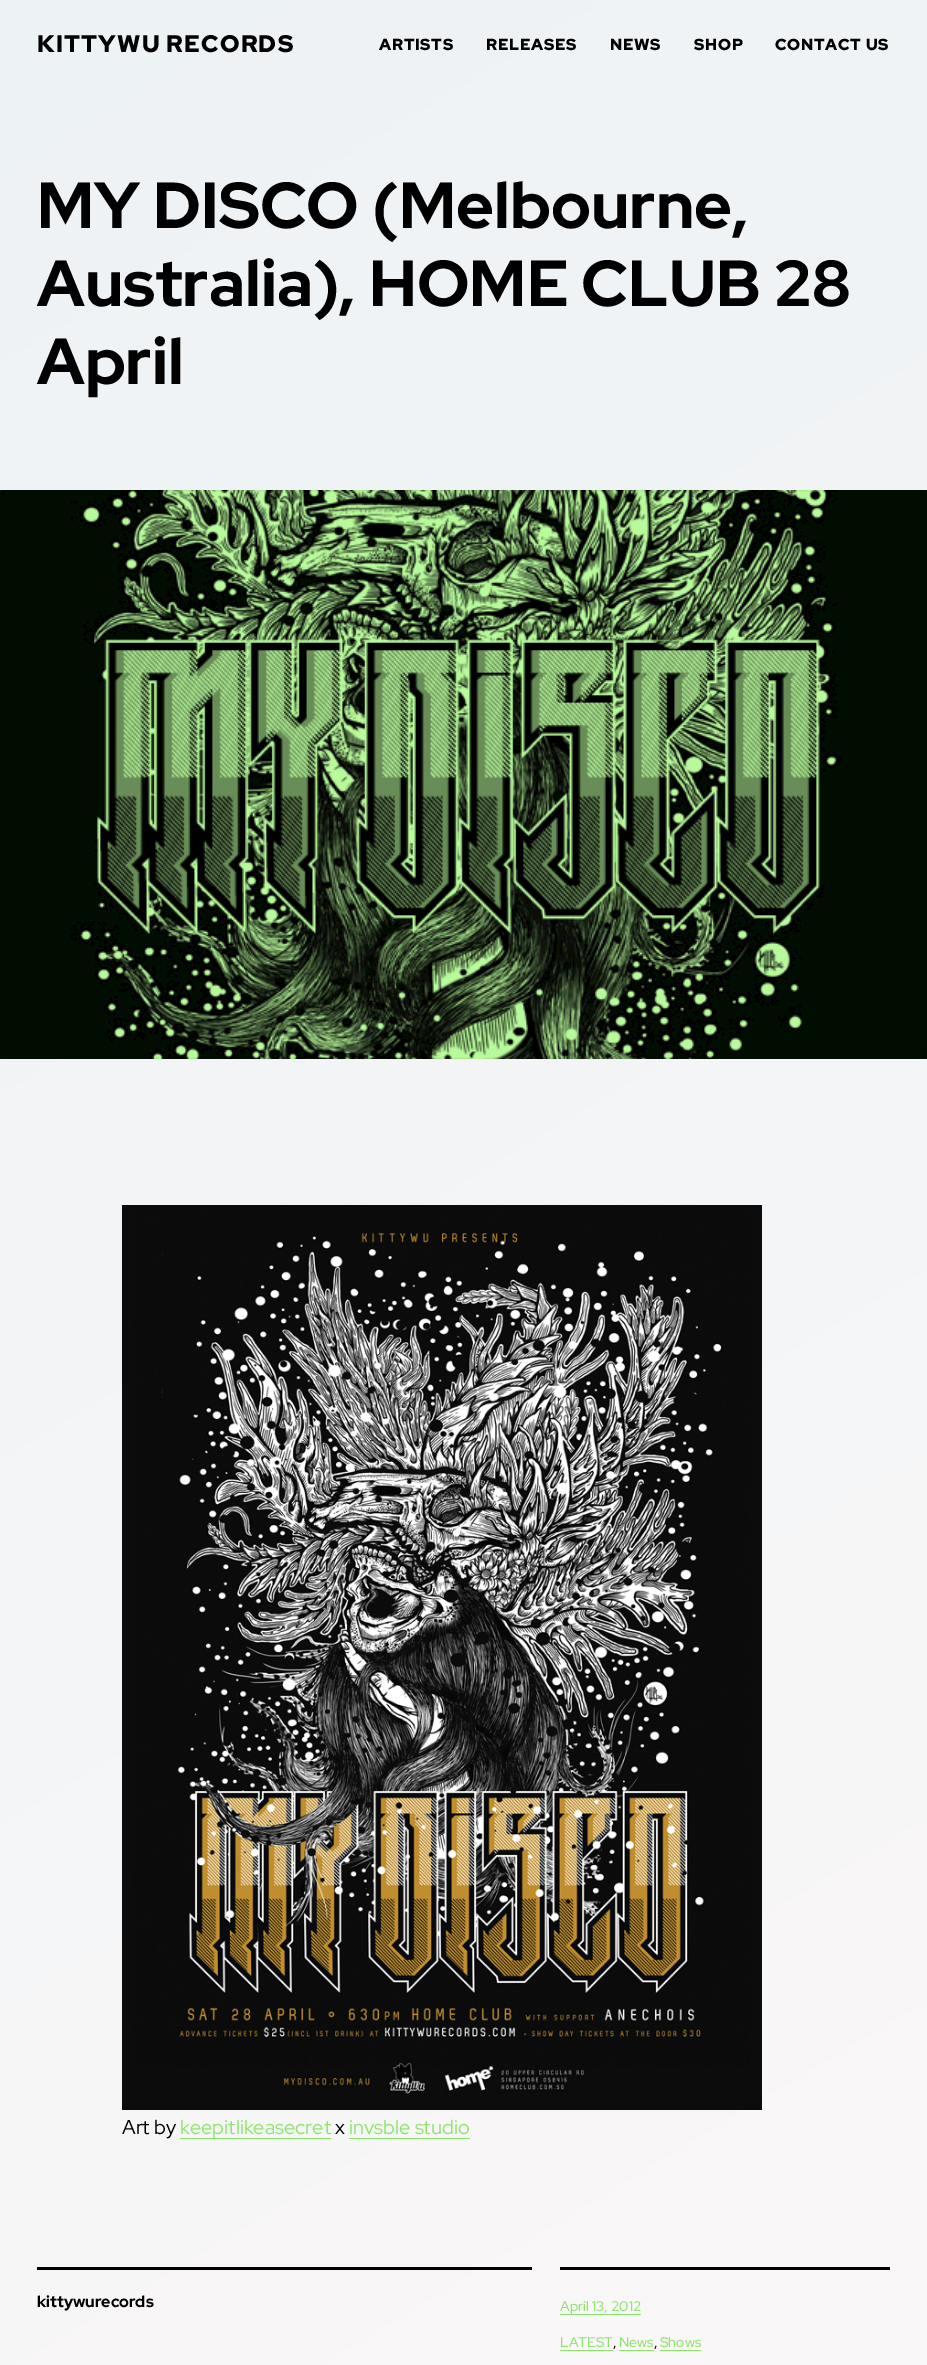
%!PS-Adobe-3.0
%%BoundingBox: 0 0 927 2365
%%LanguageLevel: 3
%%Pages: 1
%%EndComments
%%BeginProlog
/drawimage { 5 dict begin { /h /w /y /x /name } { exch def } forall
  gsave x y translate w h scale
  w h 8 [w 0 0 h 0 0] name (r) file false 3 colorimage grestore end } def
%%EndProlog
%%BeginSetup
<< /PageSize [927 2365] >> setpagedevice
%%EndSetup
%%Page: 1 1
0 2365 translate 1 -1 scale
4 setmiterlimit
1 setgray
0 0 927 2365 rectfill
gsave newpath 0 0 moveto 927 0 lineto 927 2365 lineto 0 2365 lineto closepath clip newpath
<< /ShadingType 2 /ColorSpace /DeviceRGB /Coords [-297 178 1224 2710] /Extend [true true] /Function << /FunctionType 2 /Domain [0 1] /C0 [0.929 0.949 0.957] /C1 [0.992 0.976 0.976] /N 1 >> >> shfill grestore
(images/1.raw) 0 490 927 569 drawimage
(images/2.raw) 122 1205 640 905 drawimage
0.549 0.902 0.42 setrgbcolor
180 2138 151 1 rectfill
349 2138 121 1 rectfill
0 setgray
37 2267 495 3 rectfill
560 2267 330 3 rectfill
0.549 0.902 0.42 setrgbcolor
560 2314 81 1 rectfill
560 2350 53 1 rectfill
619 2350 35 1 rectfill
660 2350 41 1 rectfill
/RedHatDisplay-Black [24 0 0 -24 0 0] selectfont
0 setgray
37 52 moveto 1.25 0 (KITTYWU RECORDS) ashow
/RedHatDisplay-Black [16 0 0 -16 0 0] selectfont
379 50 moveto 0.75 0 (ARTISTS) ashow
486 50 moveto 0.75 0 (RELEASES) ashow
610 50 moveto 0.75 0 (NEWS) ashow
694 50 moveto 0.75 0 (SHOP) ashow
775 50 moveto 0.75 0 (CONTACT US) ashow
/RedHatDisplay-Bold [64.9 0 0 -64.9 0 0] selectfont
37 228 moveto (MY DISCO \(Melbourne,) show
37 306 moveto (Australia\), HOME CLUB 28) show
37 384 moveto (April) show
/RedHatDisplay-Regular [20 0 0 -20 0 0] selectfont
122 2134 moveto (Art by) show
0.549 0.902 0.42 setrgbcolor
180 2134 moveto (keepitlikeasecret) show
0 setgray
335 2134 moveto (x) show
0.549 0.902 0.42 setrgbcolor
349 2134 moveto (invsble studio) show
/RedHatDisplay-Bold [16 0 0 -16 0 0] selectfont
0 setgray
37 2307 moveto (kittywurecords) show
/RedHatDisplay-Medium [14 0 0 -14 0 0] selectfont
0.549 0.902 0.42 setrgbcolor
560 2311 moveto (April 13, 2012) show
560 2347 moveto (LATEST) show
0 setgray
613 2347 moveto (,) show
0.549 0.902 0.42 setrgbcolor
619 2347 moveto (News) show
0 setgray
654 2347 moveto (,) show
0.549 0.902 0.42 setrgbcolor
660 2347 moveto (Shows) show
showpage
%%EOF
